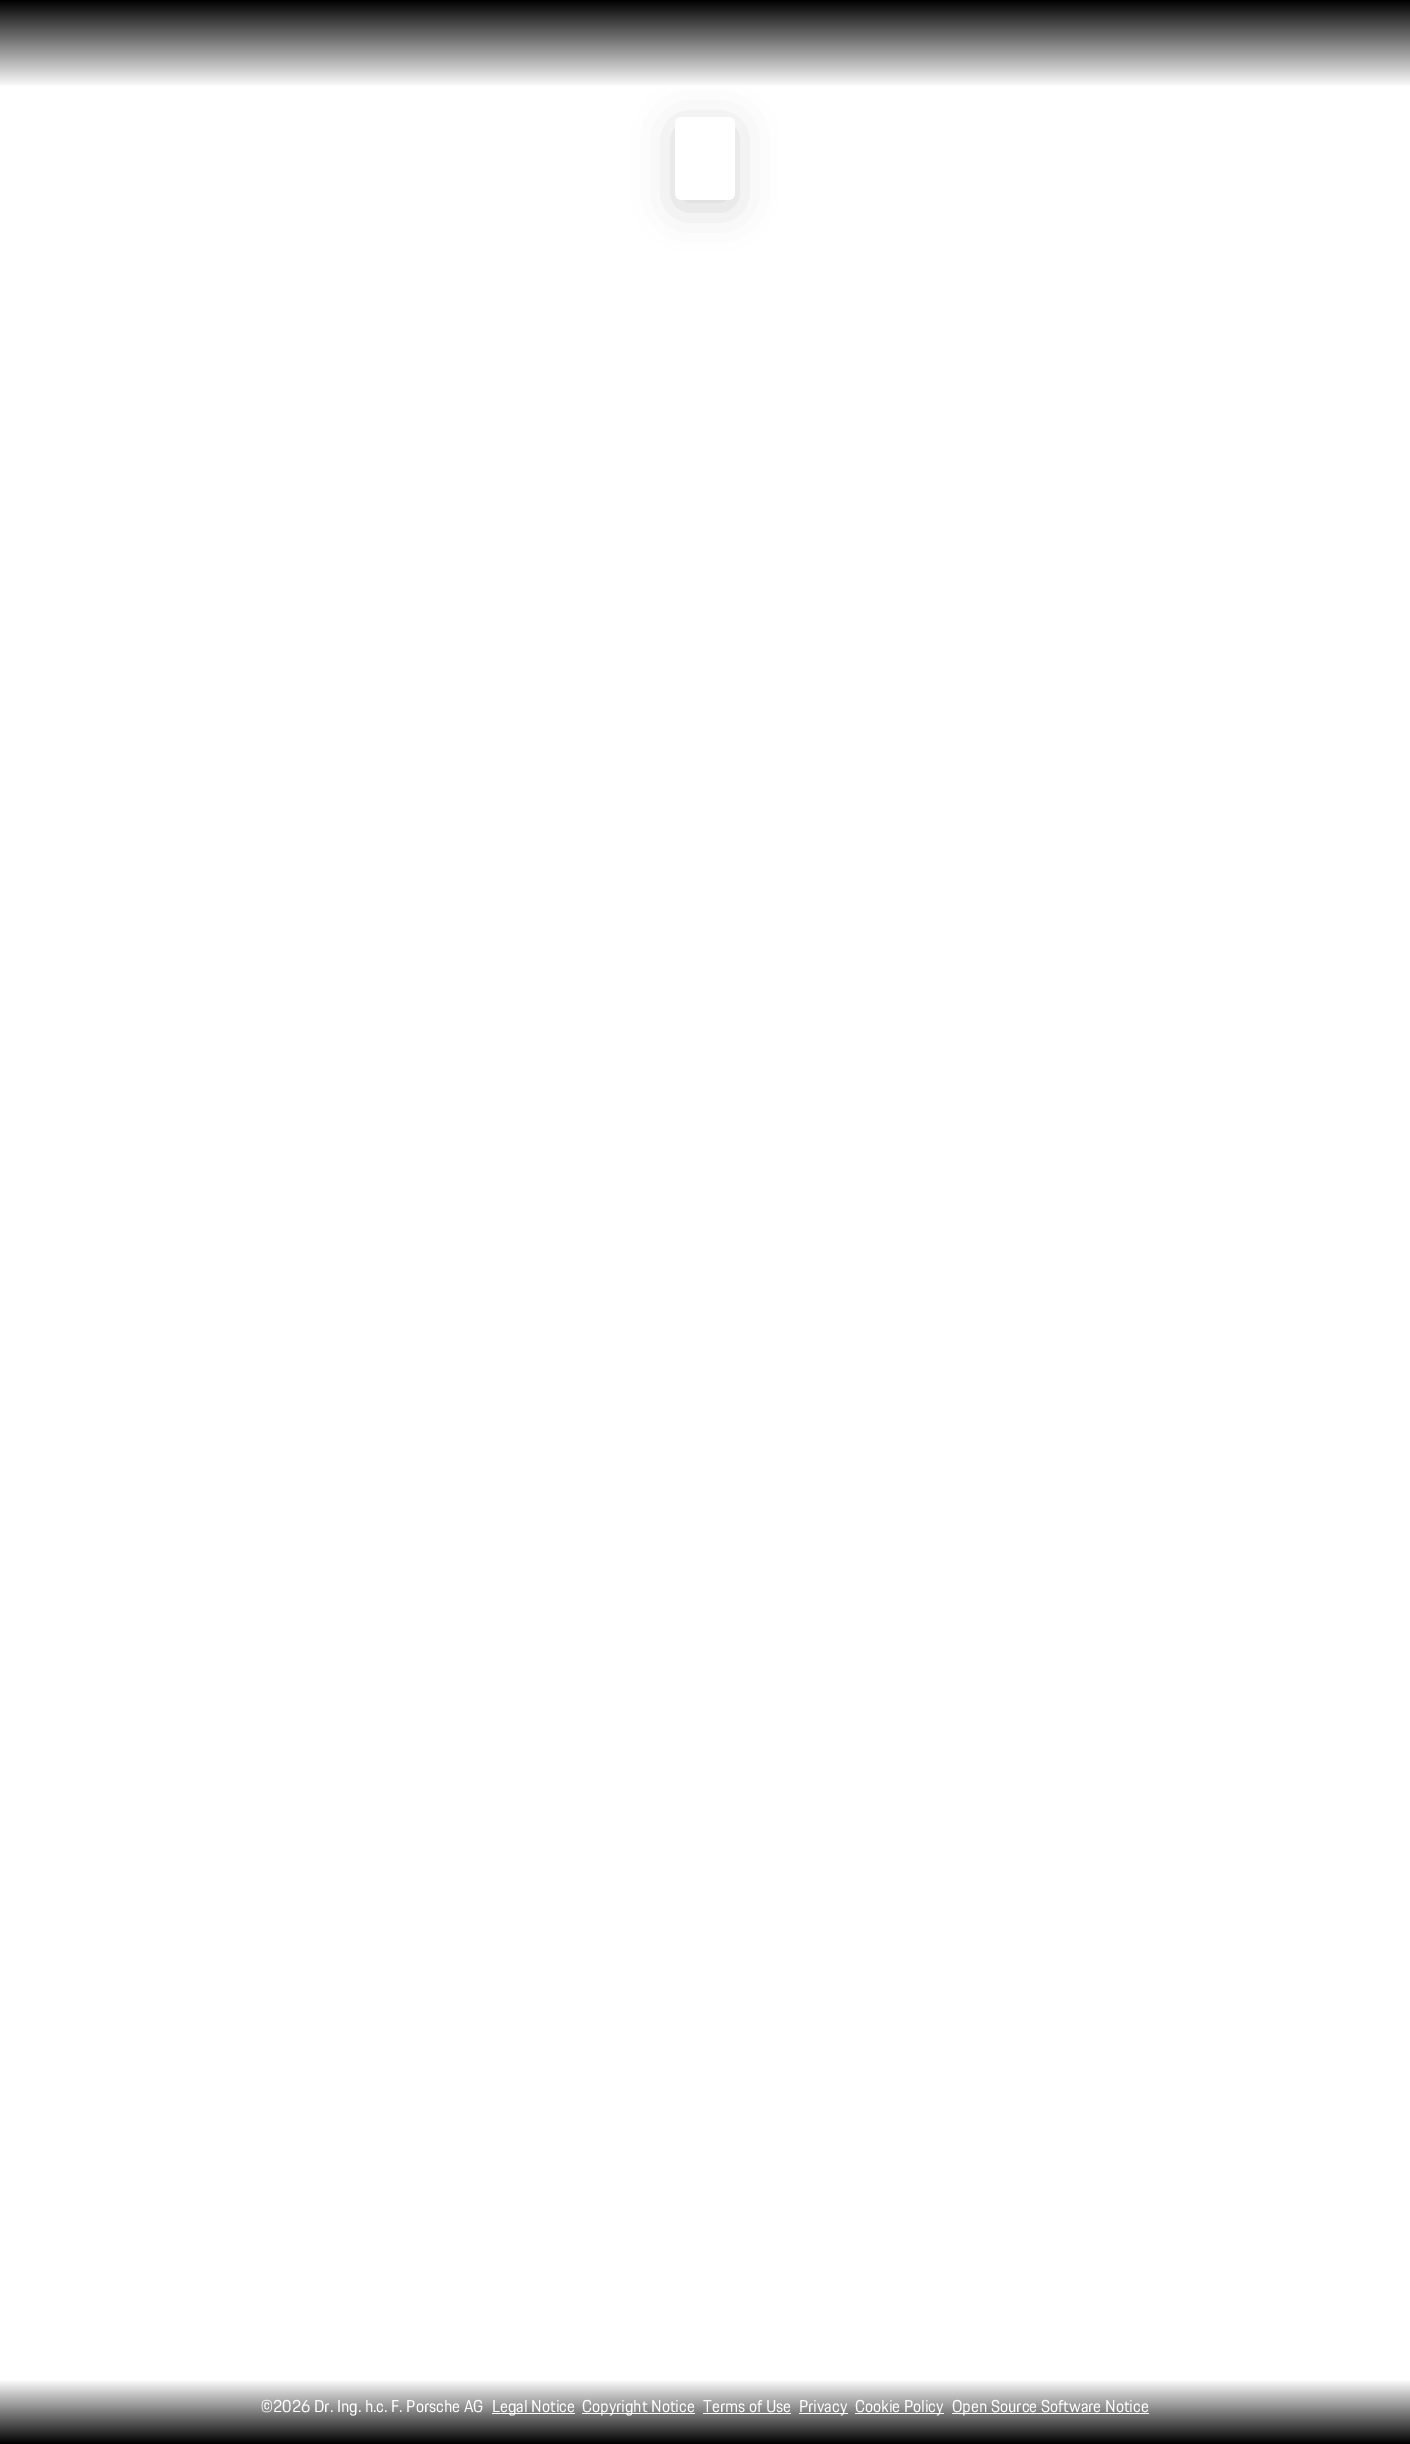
%!PS-Adobe-3.0
%%BoundingBox: 0 0 1410 2444
%%LanguageLevel: 3
%%Pages: 1
%%EndComments
%%BeginProlog
/setalpha { dup .setfillconstantalpha .setstrokeconstantalpha } def
/rrect { 5 dict begin { /r /h /w /y /x } { exch def } forall
  x r add y moveto x w add y 2 copy h add r arct x w add y h add x 1 index r arct
  x y h add x y r arct x y 2 copy exch w add exch r arct closepath end } def
/softshadow { 12 dict begin { /a /b /q /h /w /y /x } { exch def } forall gsave /was 0 def
  9 -2 -9 { dup b mul 4 div /e exch def 1 sub .425 mul 2.718 exch exp 1 add a .99 .min exch div /now exch def
    1 1 now sub 1 was sub div sub setalpha /was now def
    w h .min e 2 mul add 0 gt { x e sub y e sub w e 2 mul add h e 2 mul add
      q e add b .6 mul add w h .min 2 div e add .min 0 .max rrect fill } if } for grestore end } def
%%EndProlog
%%BeginSetup
<< /PageSize [1410 2444] /PageUsesTransparency true >> setpagedevice
%%EndSetup
%%Page: 1 1
0 .pushpdf14devicefilter
0 2444 translate 1 -1 scale
4 setmiterlimit
1 setgray
0 0 1410 2444 rectfill
gsave
newpath 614 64 moveto 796 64 lineto 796 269 lineto 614 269 lineto closepath 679 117 moveto 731 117 lineto 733 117 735 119 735 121 curveto 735 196 lineto 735 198 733 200 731 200 curveto 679 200 lineto 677 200 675 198 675 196 curveto 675 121 lineto 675 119 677 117 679 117 curveto closepath eoclip newpath
0 setgray
675 125 60 83 4 20 0.16 softshadow
grestore
gsave newpath 0 0 moveto 1410 0 lineto 1410 86 lineto 0 86 lineto closepath clip newpath
<< /ShadingType 2 /ColorSpace /DeviceRGB /Coords [705 0 705 87] /Extend [true true] /Function << /FunctionType 2 /Domain [0 1] /C0 [0 0 0] /C1 [1 1 1] /N 1 >> >> shfill grestore
gsave newpath 0 2380 moveto 1410 2380 lineto 1410 2444 lineto 0 2444 lineto closepath clip newpath
<< /ShadingType 2 /ColorSpace /DeviceRGB /Coords [705 2368 705 2444] /Extend [true true] /Function << /FunctionType 3 /Domain [0 1] /Functions [<< /FunctionType 2 /Domain [0 1] /C0 [1 1 1] /C1 [1 1 1] /N 1 >> << /FunctionType 2 /Domain [0 1] /C0 [1 1 1] /C1 [0 0 0] /N 1 >>] /Bounds [0.15] /Encode [0 1 0 1] >> >> shfill grestore
492 2413 83 1 rectfill
582 2413 113 1 rectfill
703 2413 88 1 rectfill
799 2413 49 1 rectfill
855 2413 89 1 rectfill
952 2413 197 1 rectfill
/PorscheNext-Regular [16 0 0 -16 0 0] selectfont
261 2412 moveto (©2026 Dr. Ing. h.c. F. Porsche AG) show
492 2412 moveto (Legal Notice) show
582 2412 moveto (Copyright Notice) show
703 2412 moveto (Terms of Use) show
799 2412 moveto (Privacy) show
855 2412 moveto (Cookie Policy) show
952 2412 moveto (Open Source Software Notice) show
.poppdf14devicefilter showpage
%%EOF
